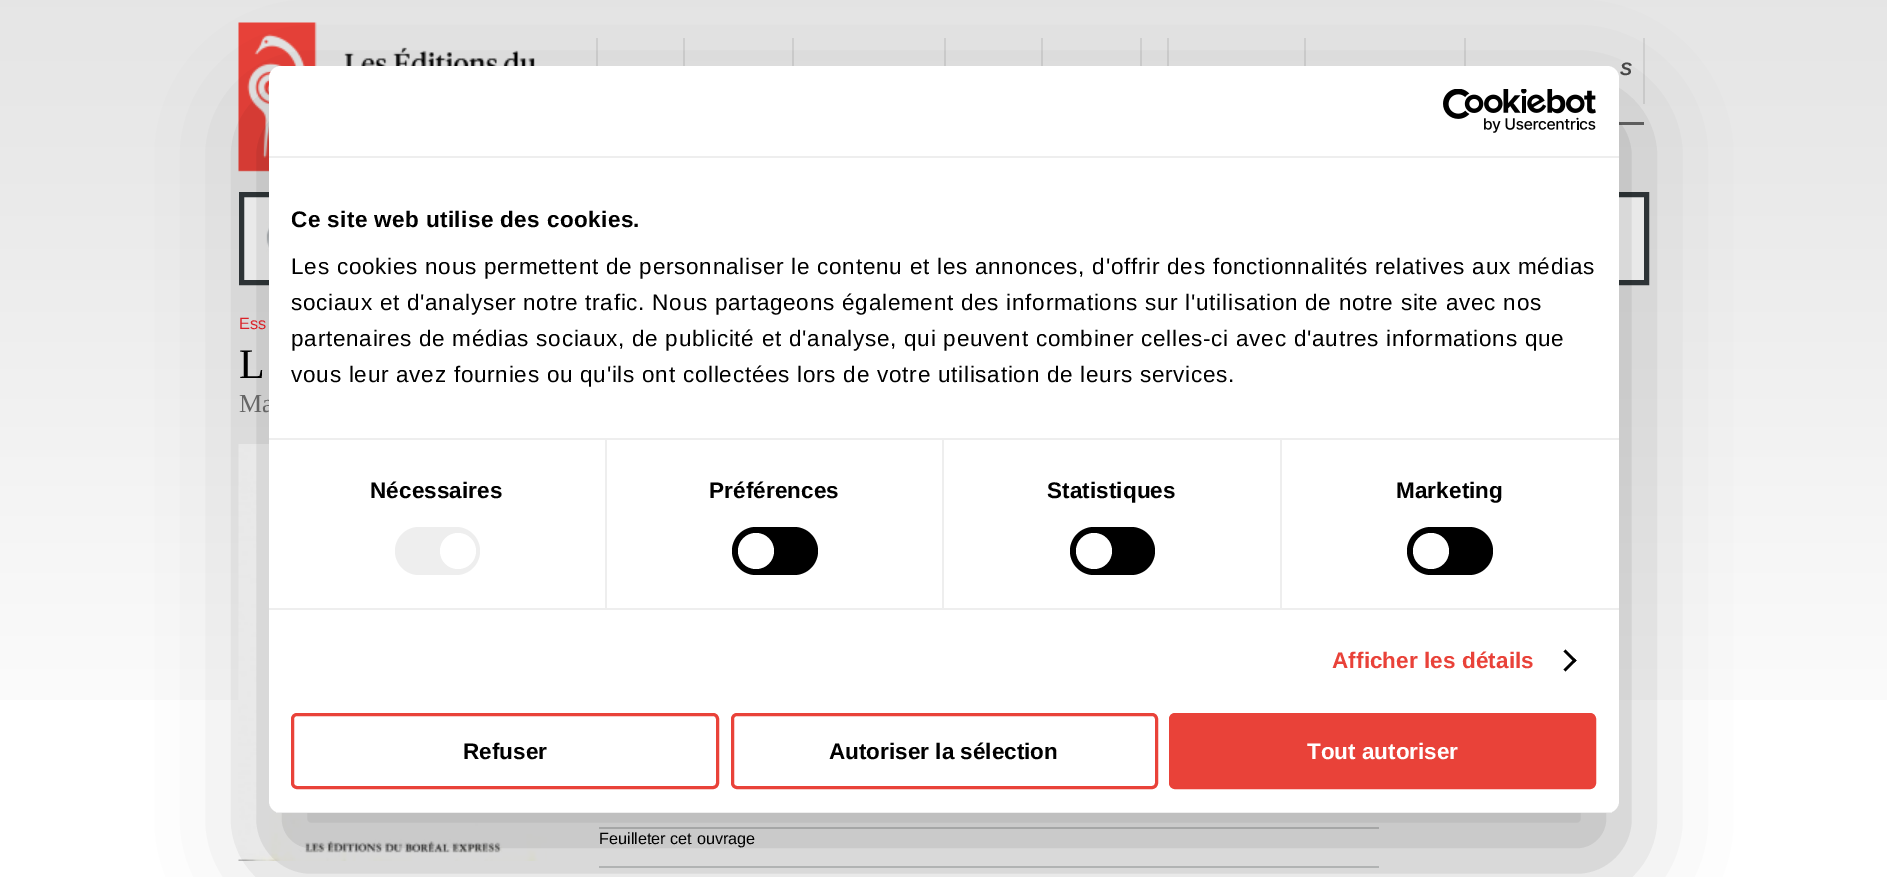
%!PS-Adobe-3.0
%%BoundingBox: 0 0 1887 877
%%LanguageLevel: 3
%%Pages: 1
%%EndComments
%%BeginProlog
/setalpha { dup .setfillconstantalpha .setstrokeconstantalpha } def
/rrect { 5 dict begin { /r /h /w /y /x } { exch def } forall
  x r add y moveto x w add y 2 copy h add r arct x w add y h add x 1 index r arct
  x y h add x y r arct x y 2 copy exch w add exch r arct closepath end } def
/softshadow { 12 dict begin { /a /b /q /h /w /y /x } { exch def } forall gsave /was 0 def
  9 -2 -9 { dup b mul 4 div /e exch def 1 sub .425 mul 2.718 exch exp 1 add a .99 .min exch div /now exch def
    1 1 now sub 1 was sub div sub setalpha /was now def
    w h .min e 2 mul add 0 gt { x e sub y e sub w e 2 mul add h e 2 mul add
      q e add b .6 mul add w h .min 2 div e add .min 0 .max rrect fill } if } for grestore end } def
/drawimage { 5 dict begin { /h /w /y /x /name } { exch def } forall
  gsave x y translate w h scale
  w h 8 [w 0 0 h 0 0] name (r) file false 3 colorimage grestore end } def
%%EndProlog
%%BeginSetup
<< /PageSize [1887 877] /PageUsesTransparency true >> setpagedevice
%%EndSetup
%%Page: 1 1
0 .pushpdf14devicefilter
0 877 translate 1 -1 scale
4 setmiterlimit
1 setgray
0 0 1887 877 rectfill
(images/1.raw) 0 0 1887 700 drawimage
(images/2.raw) 238 22 297 150 drawimage
0.824 setgray
596 38 2 28 rectfill
683 38 2 28 rectfill
792 38 2 28 rectfill
944 38 2 28 rectfill
1140 38 2 28 rectfill
1041 38 2 28 rectfill
1167 38 2 28 rectfill
1304 38 2 28 rectfill
0.4 setgray
1619 122 25 3 rectfill
0.824 setgray
1643 38 2 66 rectfill
1464 38 2 28 rectfill
1 setgray
newpath 241.5 194.5 moveto 1646.5 194.5 lineto 1646.5 282.5 lineto 241.5 282.5 lineto closepath gsave fill grestore
0.192 0.22 0.231 setrgbcolor
5 setlinewidth
stroke
(images/3.raw) 266 220 3 35 drawimage
(images/4.raw) 238 444 331 417 drawimage
0.816 0.824 0.824 setrgbcolor
599 827 780 2 rectfill
599 866 780 2 rectfill
0 setgray
269 114 1350 747 12 51 0.3 softshadow
/LiberationSans-BoldItalic [18 0 0 -18 0 0] selectfont
0.275 setgray
1620 75 moveto (S) show
/LiberationSans-Regular [16.25 0 0 -16.25 0 0] selectfont
0.855 0.129 0.157 setrgbcolor
239 329 moveto (Ess) show
/LiberationSerif-Regular [42 0 0 -42 0 0] selectfont
0 setgray
239 378 moveto -1 0 (L) ashow
/LiberationSerif-Regular [26 0 0 -26 0 0] selectfont
0.4 setgray
239 412 moveto (Ma) show
/LiberationSans-Regular [16.25 0 0 -16.25 0 0] selectfont
0 setgray
599 844 moveto (Feuilleter cet ouvrage) show
1 setgray
269 66 1350 747 12 rrect fill
0.933 setgray
269 156 1350 2 rectfill
(images/5.raw) 1443 89 153 44 drawimage
269 438 1350 2 rectfill
/LiberationSans-Bold [22.5 0 0 -22.5 0 0] selectfont
0 setgray
291 227 moveto 0.4 0 (Ce site web utilise des cookies.) ashow
/LiberationSans-Regular [22.5 0 0 -22.5 0 0] selectfont
291 274 moveto 0.75 0 (Les cookies nous permettent de personnaliser le contenu et les annonces, d'offrir des fonctionnalités relatives aux médias) ashow
291 310 moveto 0.75 0 (sociaux et d'analyser notre trafic. Nous partageons également des informations sur l'utilisation de notre site avec nos) ashow
291 346 moveto 0.75 0 (partenaires de médias sociaux, de publicité et d'analyse, qui peuvent combiner celles-ci avec d'autres informations que) ashow
291 382 moveto 0.75 0 (vous leur avez fournies ou qu'ils ont collectées lors de votre utilisation de leurs services.) ashow
0.933 setgray
269 608 1350 2 rectfill
605 440 2 168 rectfill
/LiberationSans-Bold [22.5 0 0 -22.5 0 0] selectfont
0 setgray
370 498 moveto 0.1 0 (Nécessaires) ashow
0.933 setgray
395 527 85 48 24 rrect fill
1 setgray
newpath 458 551 18 0 360 arc closepath fill
0.933 setgray
942 440 2 168 rectfill
0 setgray
709 498 moveto 0.1 0 (Préférences) ashow
732 527 86 48 24 rrect fill
1 setgray
newpath 756 551 18 0 360 arc closepath fill
0.933 setgray
1280 440 2 168 rectfill
0 setgray
1047 498 moveto 0.1 0 (Statistiques) ashow
1070 527 85 48 24 rrect fill
1 setgray
newpath 1094 551 18 0 360 arc closepath fill
0 setgray
1396 498 moveto 0.1 0 (Marketing) ashow
1407 527 86 48 24 rrect fill
1 setgray
newpath 1431 551 18 0 360 arc closepath fill
0.914 0.259 0.224 setrgbcolor
1332 668 moveto 0.1 0 (Afficher les détails) ashow
0 setgray
newpath 1565.5 649.5 moveto 1576.5 660.5 lineto 1574.5 662.5 lineto 1563.5 651.5 lineto closepath fill
newpath 1574.5 658.5 moveto 1576.5 660.5 lineto 1565.5 671.5 lineto 1563.5 669.5 lineto closepath fill
gsave
269 66 1350 747 12 rrect clip newpath
0.933 setgray
269 812 1350 1 rectfill
grestore
0.914 0.259 0.224 setrgbcolor
3 setlinewidth
292.5 714.5 425 73 4.5 rrect stroke
0 setgray
463 759 moveto (Refuser) show
0.914 0.259 0.224 setrgbcolor
732.5 714.5 424 73 4.5 rrect stroke
0 setgray
829 759 moveto (Autoriser la sélection) show
0.914 0.259 0.224 setrgbcolor
1170.5 714.5 424 73 4.5 rrect gsave fill grestore
stroke
1 setgray
1307 759 moveto (Tout autoriser) show
.poppdf14devicefilter showpage
%%EOF
